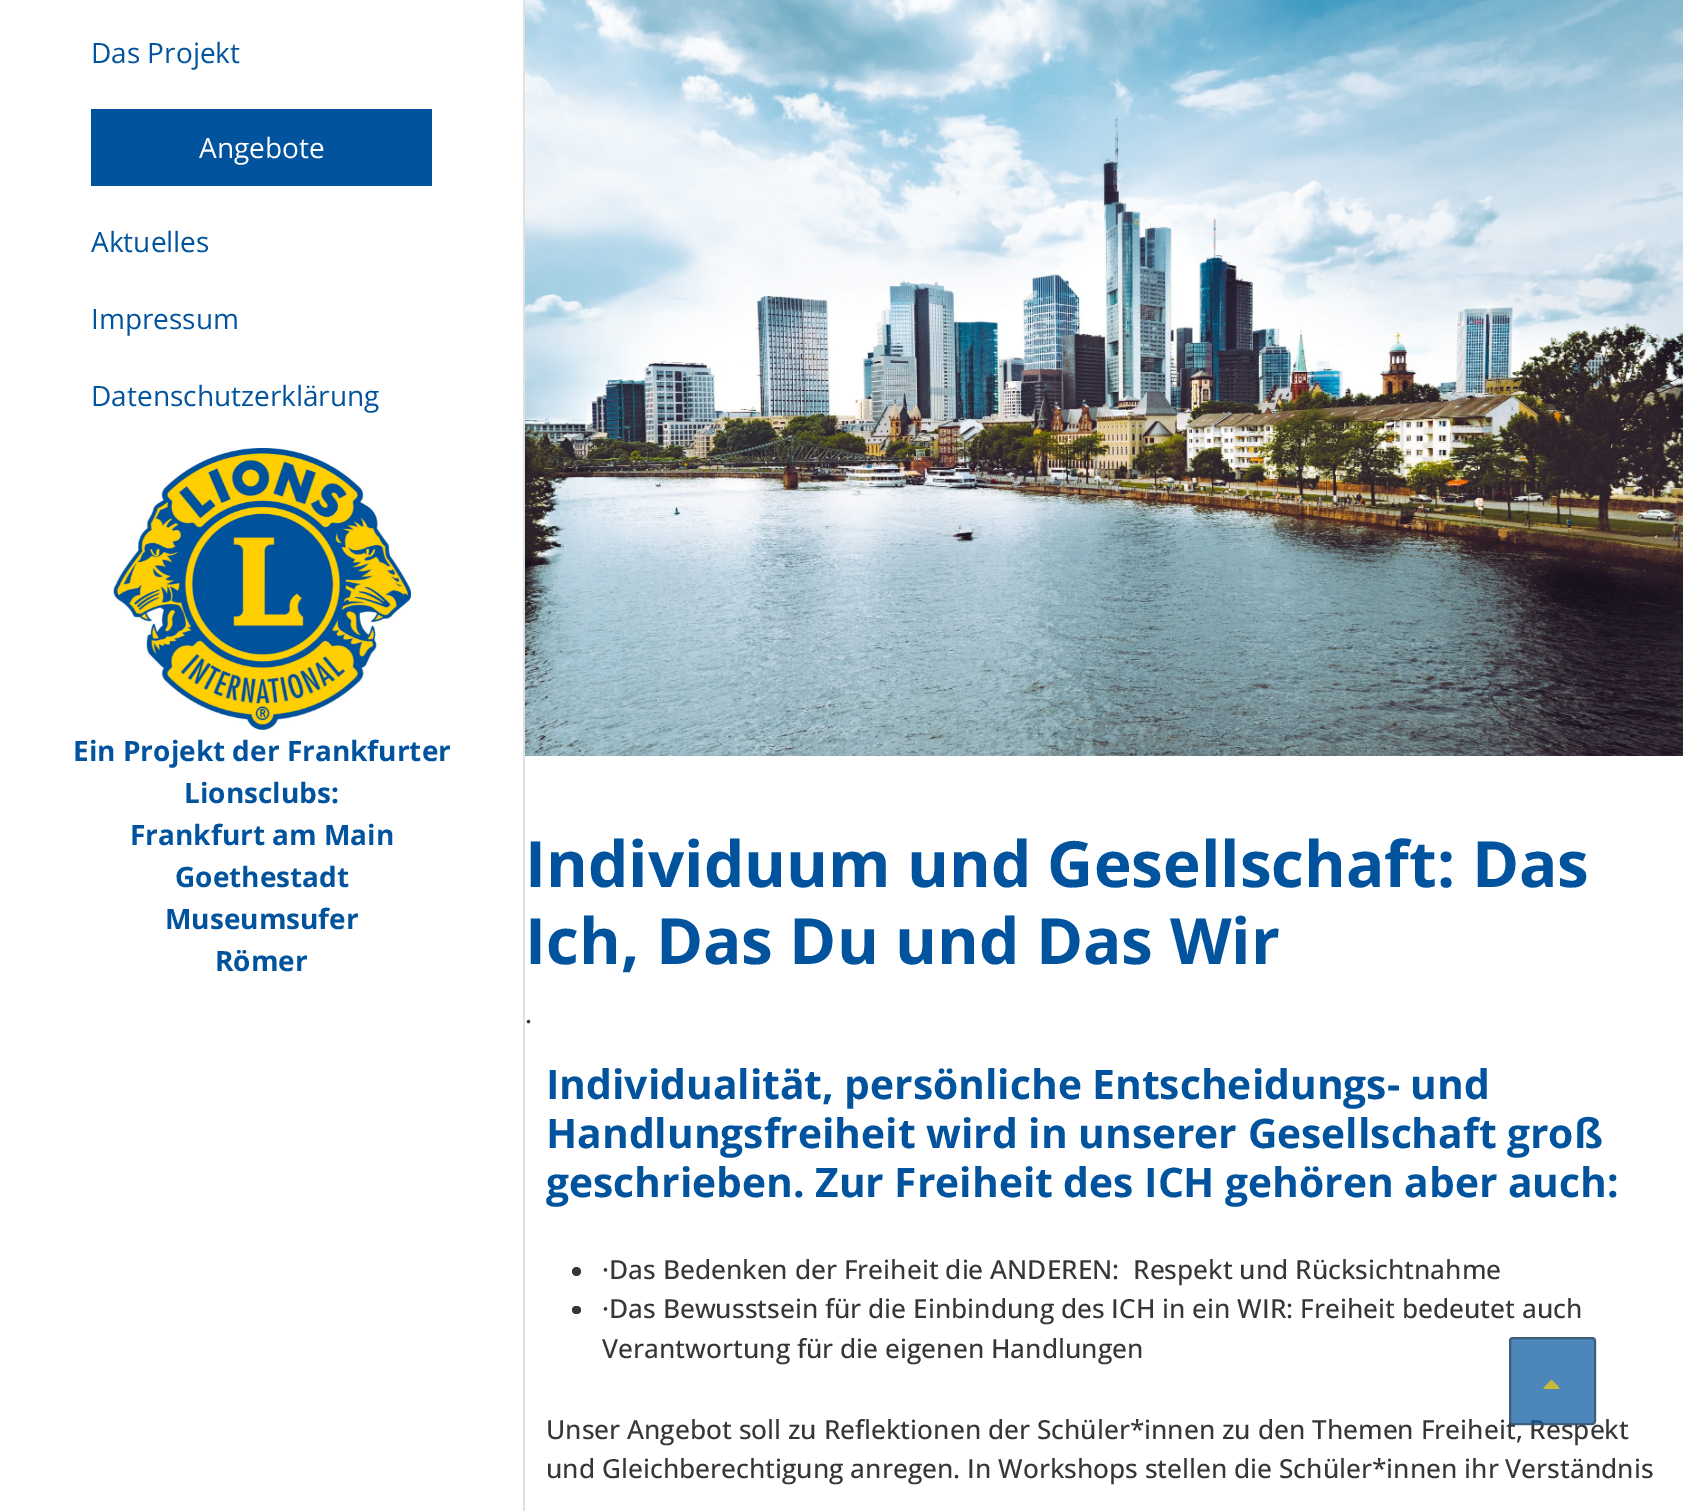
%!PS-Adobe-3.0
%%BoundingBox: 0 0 1683 1511
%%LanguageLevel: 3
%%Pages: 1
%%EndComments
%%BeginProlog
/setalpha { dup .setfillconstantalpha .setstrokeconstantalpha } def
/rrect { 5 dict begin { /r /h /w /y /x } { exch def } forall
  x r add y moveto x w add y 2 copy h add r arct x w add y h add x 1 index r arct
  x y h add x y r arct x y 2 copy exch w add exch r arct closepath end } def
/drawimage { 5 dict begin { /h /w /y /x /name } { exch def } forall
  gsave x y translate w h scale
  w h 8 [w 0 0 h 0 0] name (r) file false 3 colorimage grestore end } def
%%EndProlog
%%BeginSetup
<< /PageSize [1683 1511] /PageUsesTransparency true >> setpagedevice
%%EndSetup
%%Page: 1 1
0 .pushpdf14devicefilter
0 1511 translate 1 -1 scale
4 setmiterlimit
1 setgray
0 0 1683 1511 rectfill
0.882 setgray
523 0 2 1511 rectfill
0 0.325 0.612 setrgbcolor
91 109 341 77 rectfill
(images/1.raw) 113 448 298 282 drawimage
(images/2.raw) 525 0 1158 756 drawimage
0.212 setgray
newpath 576.5 1271.5 4.5 0 360 arc closepath fill
572 1306 9 8 4 rrect fill
/OpenSans-Regular [28 0 0 -28 0 0] selectfont
0 0.325 0.612 setrgbcolor
91 63 moveto (Das Projekt) show
1 setgray
199 158 moveto (Angebote) show
0 0.325 0.612 setrgbcolor
91 252 moveto (Aktuelles) show
91 329 moveto (Impressum) show
91 406 moveto (Datenschutzerklärung) show
/OpenSans-Bold [28 0 0 -28 0 0] selectfont
73 761 moveto (Ein Projekt der Frankfurter) show
184 803 moveto (Lionsclubs:) show
130 845 moveto (Frankfurt am Main) show
175 887 moveto (Goethestadt) show
165 929 moveto (Museumsufer) show
215 971 moveto (Römer) show
/OpenSans-Bold [63.75 0 0 -63.75 0 0] selectfont
525 887 moveto (Individuum und Gesellschaft: Das) show
525 964 moveto (Ich, Das Du und Das Wir) show
/OpenSans-Medium [26.25 0 0 -26.25 0 0] selectfont
0.212 setgray
525 1023 moveto (.) show
/OpenSans-Bold [40.75 0 0 -40.75 0 0] selectfont
0 0.325 0.612 setrgbcolor
546 1099 moveto (Individualität, persönliche Entscheidungs- und) show
546 1148 moveto (Handlungsfreiheit wird in unserer Gesellschaft groß) show
546 1197 moveto (geschrieben. Zur Freiheit des ICH gehören aber auch:) show
/OpenSans-Medium [26.25 0 0 -26.25 0 0] selectfont
0.212 setgray
602 1279 moveto (·Das Bedenken der Freiheit die ANDEREN:  Respekt und Rücksichtnahme) show
602 1318 moveto (·Das Bewusstsein für die Einbindung des ICH in ein WIR: Freiheit bedeutet auch) show
602 1358 moveto (Verantwortung für die eigenen Handlungen) show
546 1439 moveto (Unser Angebot soll zu Reflektionen der Schüler*innen zu den Themen Freiheit, Respekt) show
546 1478 moveto (und Gleichberechtigung anregen. In Workshops stellen die Schüler*innen ihr Verständnis) show
0.7 setalpha
0 0.325 0.612 setrgbcolor
1509 1337 87 88 4 rrect fill
0.227 0.302 0.361 setrgbcolor
2 setlinewidth
1510 1338 85 86 3 rrect stroke
1 setalpha
(images/3.raw) 1543 1380 17 9 drawimage
.poppdf14devicefilter showpage
%%EOF
